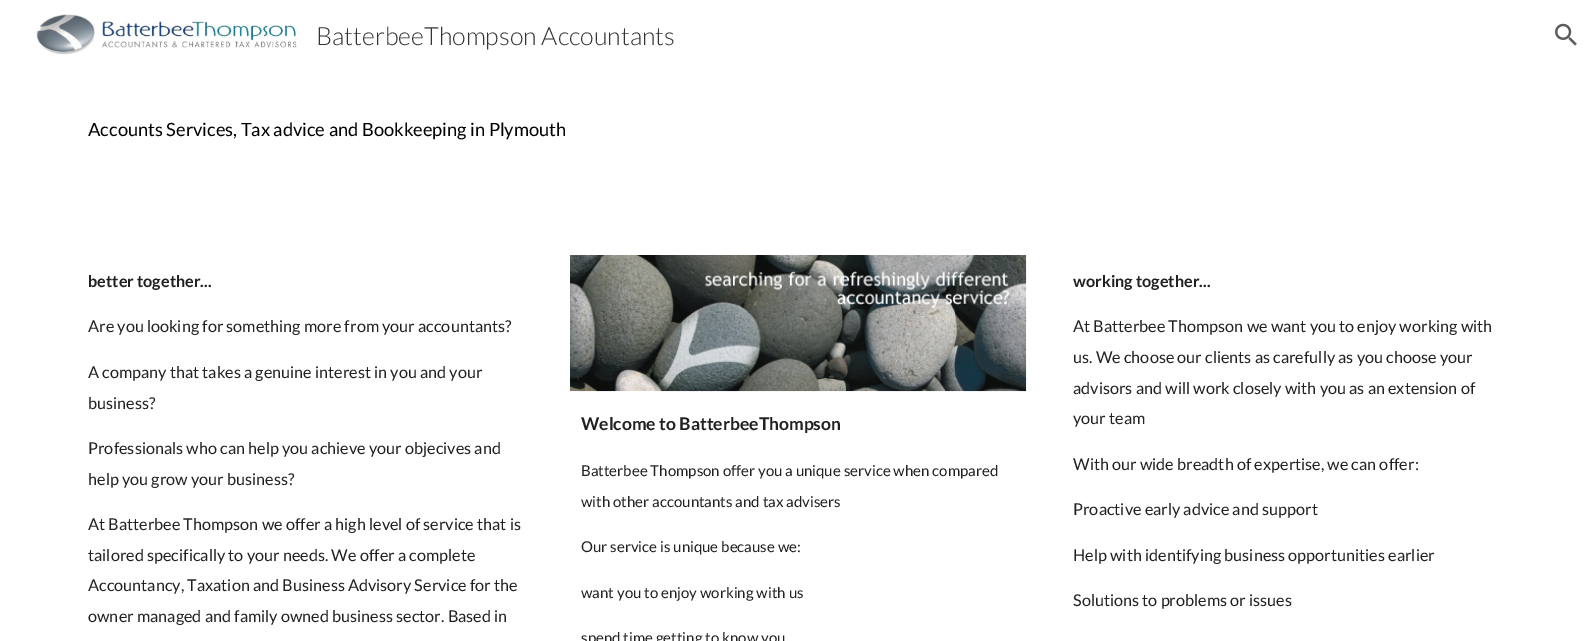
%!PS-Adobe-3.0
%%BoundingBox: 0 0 1596 641
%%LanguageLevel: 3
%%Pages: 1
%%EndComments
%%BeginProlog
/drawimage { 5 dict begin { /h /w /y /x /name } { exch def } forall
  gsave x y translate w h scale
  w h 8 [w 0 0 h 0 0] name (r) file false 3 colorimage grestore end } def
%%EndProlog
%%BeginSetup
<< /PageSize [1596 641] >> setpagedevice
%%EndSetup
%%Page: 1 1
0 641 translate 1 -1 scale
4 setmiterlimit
1 setgray
0 0 1596 641 rectfill
(images/1.raw) 36 14 261 41 drawimage
(images/2.raw) 1555 23 22 23 drawimage
(images/3.raw) 570 255 457 137 drawimage
/Lato-Light [25 0 0 -25 0 0] selectfont
0.2 setgray
316 45 moveto (BatterbeeThompson Accountants) show
/Lato-Regular [18.3 0 0 -18.3 0 0] selectfont
0 setgray
88 136 moveto (Accounts Services, Tax advice and Bookkeeping in Plymouth) show
/Lato-Bold [16.25 0 0 -16.25 0 0] selectfont
0.129 setgray
88 287 moveto (better together...) show
/Lato-Regular [16.25 0 0 -16.25 0 0] selectfont
88 332 moveto (Are you looking for something more from your accountants?) show
88 378 moveto (A company that takes a genuine interest in you and your) show
88 409 moveto (business?) show
88 454 moveto (Professionals who can help you achieve your objecives and) show
88 485 moveto (help you grow your business?) show
88 530 moveto (At Batterbee Thompson we offer a high level of service that is) show
88 561 moveto (tailored specifically to your needs. We offer a complete) show
88 591 moveto (Accountancy, Taxation and Business Advisory Service for the) show
88 622 moveto (owner managed and family owned business sector. Based in) show
/Lato-Bold [17.5 0 0 -17.5 0 0] selectfont
581 430 moveto (Welcome to BatterbeeThompson) show
/Lato-Regular [15 0 0 -15 0 0] selectfont
581 476 moveto (Batterbee Thompson offer you a unique service when compared) show
581 507 moveto (with other accountants and tax advisers) show
581 552 moveto (Our service is unique because we:) show
581 598 moveto (want you to enjoy working with us) show
581 643 moveto (spend time getting to know you) show
/Lato-Bold [16.25 0 0 -16.25 0 0] selectfont
1073 287 moveto (working together...) show
/Lato-Regular [16.25 0 0 -16.25 0 0] selectfont
1073 332 moveto (At Batterbee Thompson we want you to enjoy working with) show
1073 363 moveto (us. We choose our clients as carefully as you choose your) show
1073 394 moveto (advisors and will work closely with you as an extension of) show
1073 424 moveto (your team) show
1073 470 moveto (With our wide breadth of expertise, we can offer:) show
1073 515 moveto (Proactive early advice and support) show
1073 561 moveto (Help with identifying business opportunities earlier) show
1073 606 moveto (Solutions to problems or issues) show
showpage
%%EOF
